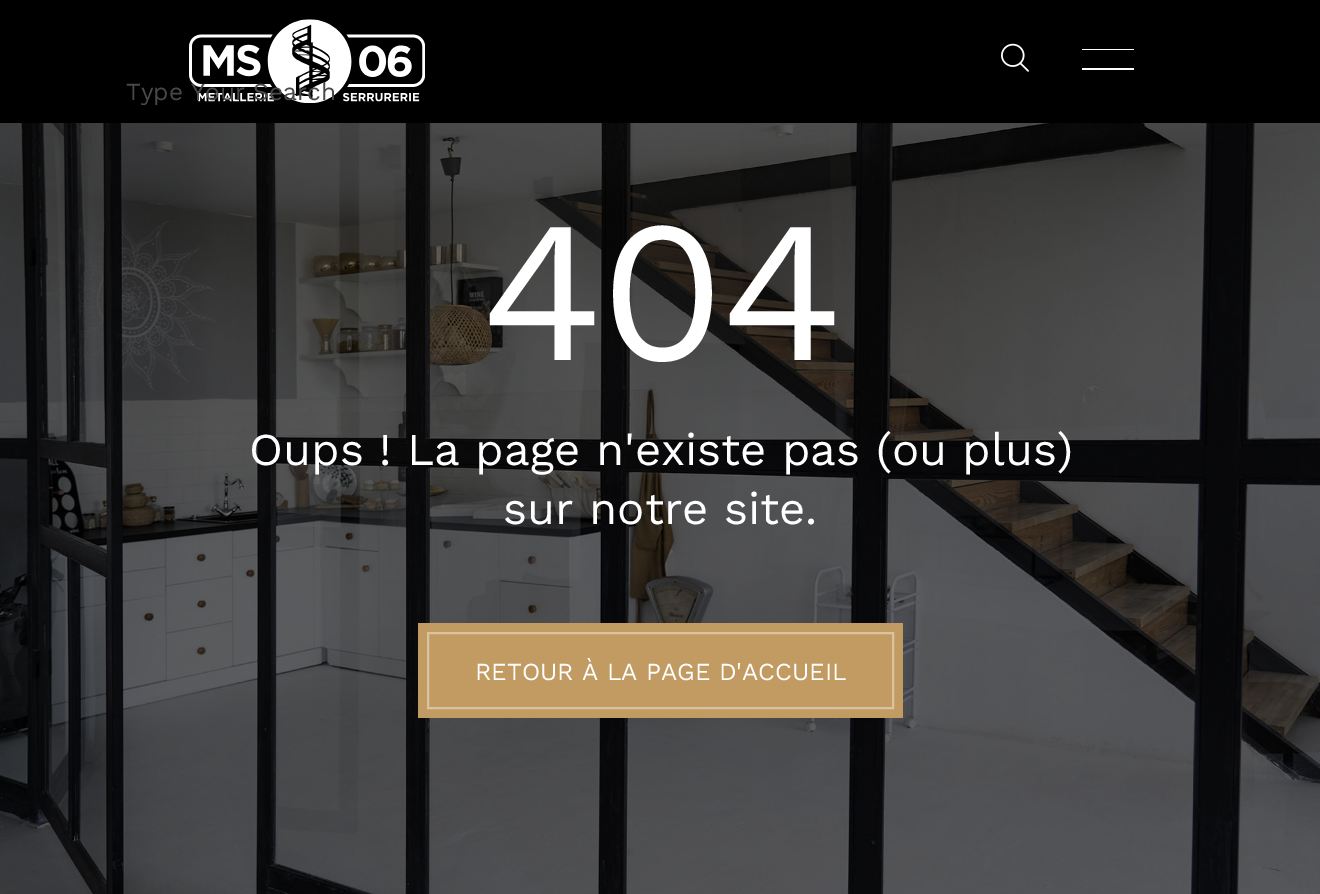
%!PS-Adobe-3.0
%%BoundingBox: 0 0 1320 894
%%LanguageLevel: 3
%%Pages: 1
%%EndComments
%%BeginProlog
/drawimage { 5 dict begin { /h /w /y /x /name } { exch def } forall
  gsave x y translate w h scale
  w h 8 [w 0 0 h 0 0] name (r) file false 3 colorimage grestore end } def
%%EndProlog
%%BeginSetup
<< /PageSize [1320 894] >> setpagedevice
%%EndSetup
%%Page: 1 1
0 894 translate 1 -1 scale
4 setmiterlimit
1 setgray
0 0 1320 894 rectfill
0 setgray
0 0 1320 123 rectfill
(images/1.raw) 189 19 236 84 drawimage
(images/2.raw) 1001 43 28 29 drawimage
1 setgray
newpath 1082 49 moveto 1134 49 lineto 1134 50 lineto 1082 50 lineto closepath 1082 68 moveto 1134 68 lineto 1134 70 lineto 1082 70 lineto closepath fill
(images/3.raw) 0 123 1320 771 drawimage
0.761 0.608 0.384 setrgbcolor
418 623 485 95 rectfill
0.855 0.765 0.631 setrgbcolor
2 setlinewidth
428 633 465 75 rectstroke
gsave
126 77 1045 28 rectclip
/WorkSans-Regular [24.5 0 0 -24.5 0 0] selectfont
0.286 setgray
126 100 moveto (Type Your Search) show
grestore
/WorkSans-Regular [201 0 0 -201 0 0] selectfont
1 setgray
481 360 moveto -4 0 (404) ashow
/WorkSans-Regular [45.5 0 0 -45.5 0 0] selectfont
249 465 moveto (Oups ! La page n'existe pas \(ou plus\)) show
503 524 moveto (sur notre site.) show
/WorkSans-Regular [24.5 0 0 -24.5 0 0] selectfont
475 680 moveto (RETOUR À LA PAGE D'ACCUEIL) show
showpage
%%EOF
